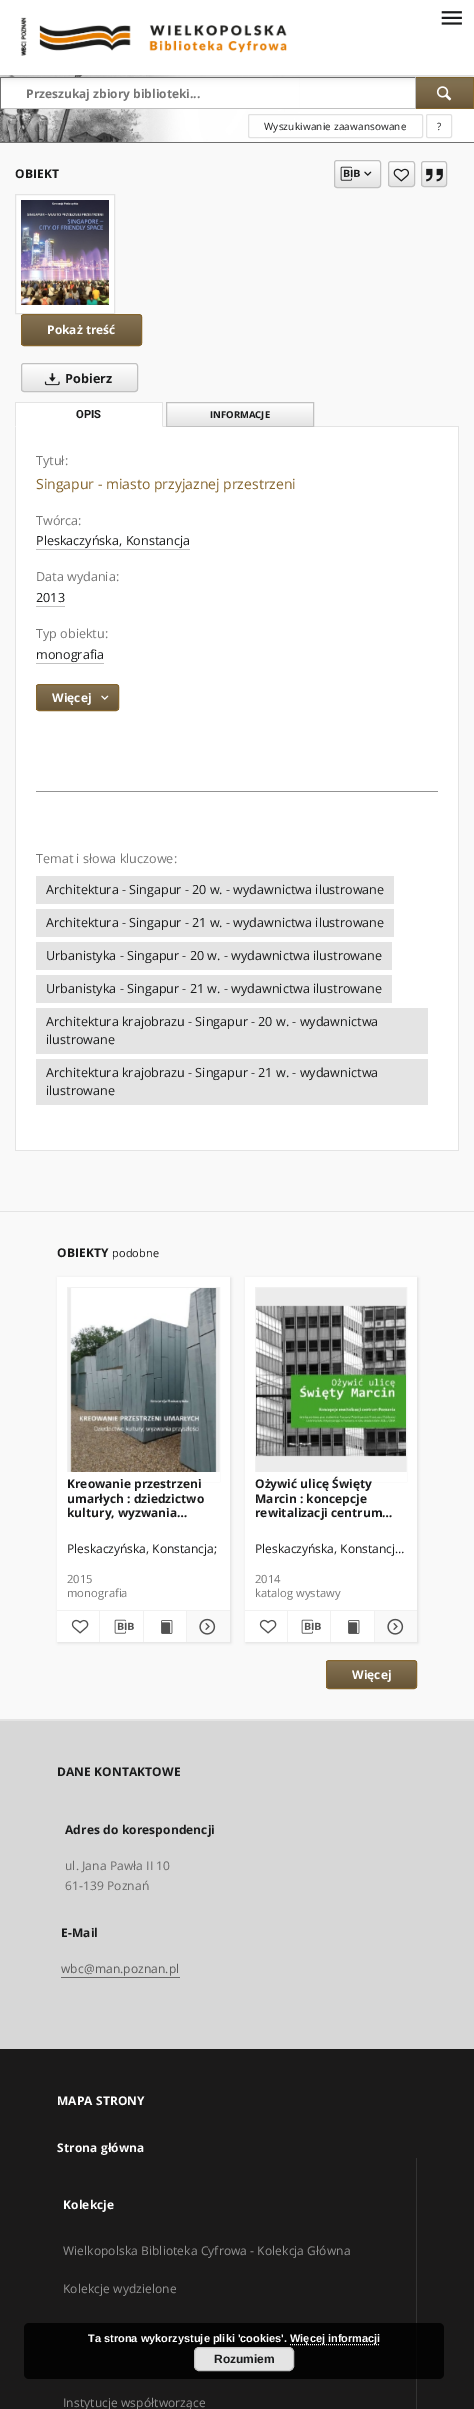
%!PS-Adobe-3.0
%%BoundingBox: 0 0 474 2409
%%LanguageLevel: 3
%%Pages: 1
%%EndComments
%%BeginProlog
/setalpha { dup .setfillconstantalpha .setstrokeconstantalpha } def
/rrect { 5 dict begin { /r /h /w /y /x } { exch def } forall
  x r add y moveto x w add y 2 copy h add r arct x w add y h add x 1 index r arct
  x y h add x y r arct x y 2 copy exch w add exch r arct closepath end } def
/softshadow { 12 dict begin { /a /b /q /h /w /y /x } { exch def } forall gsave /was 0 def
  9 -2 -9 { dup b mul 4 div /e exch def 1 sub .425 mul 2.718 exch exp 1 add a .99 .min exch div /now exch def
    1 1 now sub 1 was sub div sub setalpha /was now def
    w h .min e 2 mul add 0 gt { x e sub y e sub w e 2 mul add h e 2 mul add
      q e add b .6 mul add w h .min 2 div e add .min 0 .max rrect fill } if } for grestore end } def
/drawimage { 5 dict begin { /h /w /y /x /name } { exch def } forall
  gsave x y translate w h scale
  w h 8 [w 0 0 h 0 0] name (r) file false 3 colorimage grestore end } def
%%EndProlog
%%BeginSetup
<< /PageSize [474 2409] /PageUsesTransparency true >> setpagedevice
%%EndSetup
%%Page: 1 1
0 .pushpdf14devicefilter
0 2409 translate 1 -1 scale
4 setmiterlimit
0.976 setgray
0 0 474 2409 rectfill
(images/3.raw) 0 75 474 67 drawimage
1 setgray
1 78 298 30 rectfill
0.439 setgray
0 77 416 1 rectfill
0.757 setgray
415 77 1 32 rectfill
0 108 416 1 rectfill
0.439 setgray
0 77 1 32 rectfill
gsave newpath 416 78 moveto 473 78 lineto 473 108 lineto 416 108 lineto closepath clip newpath
<< /ShadingType 2 /ColorSpace /DeviceRGB /Coords [445 78 445 108] /Extend [true true] /Function << /FunctionType 3 /Domain [0 1] /Functions [<< /FunctionType 2 /Domain [0 1] /C0 [0.525 0.451 0.329] /C1 [0.447 0.373 0.255] /N 1 >> << /FunctionType 2 /Domain [0 1] /C0 [0.447 0.373 0.255] /C1 [0.404 0.333 0.216] /N 1 >>] /Bounds [0.8] /Encode [0 1 0 1] >> >> shfill grestore
0.522 0.396 0.18 setrgbcolor
416 77 58 1 rectfill
473 77 1 32 rectfill
(images/4.raw) 436 86 16 15 drawimage
0 setgray
0 1 474 75 0 5 0.08 softshadow
0 4 474 75 0 2.5 0.06 softshadow
1 3 472 73 0 2 0.06 softshadow
1 setgray
0 0 474 75 rectfill
(images/1.raw) 20 17 267 39 drawimage
(images/2.raw) 441 11 21 14 drawimage
0.439 setgray
0 142 474 1 rectfill
0.522 0.396 0.18 setrgbcolor
416 108 58 1 rectfill
0.886 setgray
248.5 114.5 174 23 1.5 rrect stroke
426.5 114.5 25 23 1.5 rrect stroke
gsave
334 160 47 28 3 rrect clip newpath
gsave newpath 334 161 moveto 381 161 lineto 381 187 lineto 334 187 lineto closepath clip newpath
<< /ShadingType 2 /ColorSpace /DeviceRGB /Coords [358 161 358 187] /Extend [true true] /Function << /FunctionType 2 /Domain [0 1] /C0 [1 1 1] /C1 [0.894 0.894 0.894] /N 1 >> >> shfill grestore
grestore
0.757 setgray
334.5 160.5 46 27 2.5 rrect stroke
(images/5.raw) 340 166 20 15 drawimage
(images/6.raw) 364 171 8 5 drawimage
gsave
388 161 27 26 3 rrect clip newpath
gsave newpath 388 162 moveto 415 162 lineto 415 186 lineto 388 186 lineto closepath clip newpath
<< /ShadingType 2 /ColorSpace /DeviceRGB /Coords [402 162 402 186] /Extend [true true] /Function << /FunctionType 2 /Domain [0 1] /C0 [1 1 1] /C1 [0.894 0.894 0.894] /N 1 >> >> shfill grestore
grestore
388.5 161.5 26 25 2.5 rrect stroke
(images/7.raw) 393 168 16 14 drawimage
gsave
421 161 26 26 3 rrect clip newpath
gsave newpath 421 162 moveto 447 162 lineto 447 186 lineto 421 186 lineto closepath clip newpath
<< /ShadingType 2 /ColorSpace /DeviceRGB /Coords [434 162 434 186] /Extend [true true] /Function << /FunctionType 2 /Domain [0 1] /C0 [1 1 1] /C1 [0.894 0.894 0.894] /N 1 >> >> shfill grestore
grestore
421.5 161.5 25 25 2.5 rrect stroke
(images/8.raw) 426 168 17 14 drawimage
1 setgray
newpath 15.5 194.5 moveto 114.5 194.5 lineto 114.5 313.5 lineto 15.5 313.5 lineto closepath gsave fill grestore
0.894 setgray
stroke
(images/9.raw) 21 200 88 105 drawimage
gsave
21 314 121 32 3 rrect clip newpath
gsave newpath 21 315 moveto 142 315 lineto 142 345 lineto 21 345 lineto closepath clip newpath
<< /ShadingType 2 /ColorSpace /DeviceRGB /Coords [82 315 82 345] /Extend [true true] /Function << /FunctionType 2 /Domain [0 1] /C0 [0.525 0.451 0.329] /C1 [0.404 0.333 0.216] /N 1 >> >> shfill grestore
grestore
0.522 0.396 0.18 setrgbcolor
21.5 314.5 120 31 2.5 rrect stroke
gsave
21 363 117 29 3 rrect clip newpath
gsave newpath 21 364 moveto 138 364 lineto 138 391 lineto 21 391 lineto closepath clip newpath
<< /ShadingType 2 /ColorSpace /DeviceRGB /Coords [80 364 80 391] /Extend [true true] /Function << /FunctionType 2 /Domain [0 1] /C0 [1 1 1] /C1 [0.894 0.894 0.894] /N 1 >> >> shfill grestore
grestore
0.757 setgray
21.5 363.5 116 28 2.5 rrect stroke
(images/10.raw) 44 373 16 13 drawimage
0.894 setgray
163 426 296 1 rectfill
1 setgray
15 403 148 24 rectfill
0.894 setgray
15 402 148 1 rectfill
newpath 163 402 moveto 163 427 lineto 162 426 lineto 162 403 lineto closepath fill
newpath 15 427 moveto 15 402 lineto 16 403 lineto 16 426 lineto closepath fill
gsave newpath 167 403 moveto 313 403 lineto 313 426 lineto 167 426 lineto closepath clip newpath
<< /ShadingType 2 /ColorSpace /DeviceRGB /Coords [240 403 240 426] /Extend [true true] /Function << /FunctionType 2 /Domain [0 1] /C0 [1 1 1] /C1 [0.894 0.894 0.894] /N 1 >> >> shfill grestore
0.757 setgray
166.5 402.5 147 24 rectstroke
1 setgray
16 427 442 723 rectfill
0.894 setgray
458 427 1 724 rectfill
15 1150 444 1 rectfill
15 427 1 724 rectfill
0.757 setgray
36 549 154 1 rectfill
36 606 29 1 rectfill
36 663 68 1 rectfill
gsave
36 684 83 27 3 rrect clip newpath
gsave newpath 36 685 moveto 119 685 lineto 119 710 lineto 36 710 lineto closepath clip newpath
<< /ShadingType 2 /ColorSpace /DeviceRGB /Coords [78 685 78 710] /Extend [true true] /Function << /FunctionType 2 /Domain [0 1] /C0 [0.525 0.451 0.329] /C1 [0.404 0.333 0.216] /N 1 >> >> shfill grestore
grestore
0.522 0.396 0.18 setrgbcolor
36.5 684.5 82 26 2.5 rrect stroke
(images/11.raw) 101 695 8 5 drawimage
0.576 setgray
36 791 402 1 rectfill
0.894 setgray
36 876 358 28 rectfill
36 909 358 28 rectfill
36 942 356 28 rectfill
36 975 356 28 rectfill
36 1008 392 46 rectfill
36 1059 392 46 rectfill
0 1211 474 1 rectfill
0 1719 474 2 rectfill
0.871 setgray
58 1278 173 365 0 1.5 1 softshadow
1 setgray
57 1277 173 365 rectfill
0.925 setgray
68 1288 151 184 rectfill
0.945 setgray
67.5 1287.5 152 194 rectstroke
(images/12.raw) 70 1288 147 184 drawimage
1 setgray
67 1472 153 10 rectfill
0.945 setgray
57 1610 173 1 rectfill
99 1611 1 31 rectfill
(images/13.raw) 71 1619 18 15 drawimage
143 1611 1 31 rectfill
(images/14.raw) 114 1619 20 15 drawimage
186 1611 1 31 rectfill
(images/15.raw) 161 1620 12 14 drawimage
0.976 setgray
187 1611 43 31 rectfill
(images/16.raw) 199 1618 17 17 drawimage
0.871 setgray
246 1278 172 365 0 1.5 1 softshadow
1 setgray
245 1277 172 365 rectfill
0.925 setgray
256 1288 150 184 rectfill
0.945 setgray
255.5 1287.5 151 194 rectstroke
(images/17.raw) 256 1305 150 152 drawimage
1 setgray
255 1472 152 10 rectfill
0.945 setgray
245 1610 172 1 rectfill
287 1611 1 31 rectfill
(images/13.raw) 259 1619 18 15 drawimage
330 1611 1 31 rectfill
(images/14.raw) 301 1619 20 15 drawimage
374 1611 1 31 rectfill
(images/15.raw) 348 1620 12 14 drawimage
0.976 setgray
375 1611 42 31 rectfill
(images/16.raw) 387 1618 17 17 drawimage
gsave
326 1660 91 29 3 rrect clip newpath
gsave newpath 326 1661 moveto 417 1661 lineto 417 1688 lineto 326 1688 lineto closepath clip newpath
<< /ShadingType 2 /ColorSpace /DeviceRGB /Coords [372 1661 372 1688] /Extend [true true] /Function << /FunctionType 2 /Domain [0 1] /C0 [0.525 0.451 0.329] /C1 [0.404 0.333 0.216] /N 1 >> >> shfill grestore
grestore
0.522 0.396 0.18 setrgbcolor
326.5 1660.5 90 28 2.5 rrect stroke
0.843 setgray
0 1721 474 328 rectfill
0.412 setgray
61 1977 119 1 rectfill
0.106 0.102 0.102 setrgbcolor
0 2049 474 360 rectfill
0.2 setgray
416 2158 1 251 rectfill
0.85 setalpha
0 setgray
24 2323 420 56 5 rrect fill
1 setalpha
1 setgray
[1 1] 0 setdash
newpath 290 2344.5 moveto 380 2344.5 lineto stroke
0.894 setgray
194.5 2347.5 99 23 4.5 rrect gsave fill grestore
0.757 setgray
[] 0 setdash
stroke
/OpenSans-Bold [12 0 0 -12 0 0] selectfont
0.459 setgray
26 98 moveto (Przeszukaj zbiory biblioteki...) show
/OpenSans-Regular [10 0 0 -10 0 0] selectfont
0.102 0.106 0.11 setrgbcolor
264 130 moveto 0.15 0 (Wyszukiwanie zaawansowane) ashow
437 130 moveto (?) show
/OpenSans-Bold [12 0 0 -12 0 0] selectfont
15 178 moveto 0.1 0 (OBIEKT) ashow
1 setgray
47 334 moveto (Pokaż treść) show
/OpenSans-Bold [12.6 0 0 -12.6 0 0] selectfont
0.102 0.106 0.11 setrgbcolor
65 383 moveto (Pobierz) show
/Roboto-Bold [11.25 0 0 -11.25 0 0] selectfont
76 418 moveto (OPIS) show
/OpenSans-Bold [9.5 0 0 -9.5 0 0] selectfont
210 418 moveto (INFORMACJE) show
/OpenSans-Regular [12.6 0 0 -12.6 0 0] selectfont
0.459 setgray
36 465 moveto (Tytuł:) show
/OpenSans-Regular [14 0 0 -14 0 0] selectfont
0.522 0.396 0.18 setrgbcolor
36 489 moveto (Singapur - miasto przyjaznej przestrzeni) show
/OpenSans-Regular [12.6 0 0 -12.6 0 0] selectfont
0.459 setgray
36 525 moveto (Twórca:) show
0.102 0.106 0.11 setrgbcolor
36 545 moveto (Pleskaczyńska, Konstancja) show
0.459 setgray
36 581 moveto (Data wydania:) show
0.102 0.106 0.11 setrgbcolor
36 602 moveto (2013) show
0.459 setgray
36 638 moveto (Typ obiektu:) show
0.102 0.106 0.11 setrgbcolor
36 659 moveto (monografia) show
/OpenSans-Bold [12 0 0 -12 0 0] selectfont
1 setgray
52 702 moveto (Więcej) show
/OpenSans-Regular [12.6 0 0 -12.6 0 0] selectfont
0.459 setgray
36 863 moveto (Temat i słowa kluczowe:) show
0.102 0.106 0.11 setrgbcolor
46 894 moveto (Architektura - Singapur - 20 w. - wydawnictwa ilustrowane) show
46 927 moveto (Architektura - Singapur - 21 w. - wydawnictwa ilustrowane) show
46 960 moveto (Urbanistyka - Singapur - 20 w. - wydawnictwa ilustrowane) show
46 993 moveto (Urbanistyka - Singapur - 21 w. - wydawnictwa ilustrowane) show
46 1026 moveto (Architektura krajobrazu - Singapur - 20 w. - wydawnictwa) show
46 1044 moveto (ilustrowane) show
46 1077 moveto (Architektura krajobrazu - Singapur - 21 w. - wydawnictwa) show
46 1095 moveto (ilustrowane) show
/OpenSans-Bold [12 0 0 -12 0 0] selectfont
57 1257 moveto 0.1 0 (OBIEKTY) ashow
/OpenSans-Regular [11 0 0 -11 0 0] selectfont
112 1257 moveto 0.1 0 (podobne) ashow
/OpenSans-Bold [12 0 0 -12 0 0] selectfont
67 1488 moveto (Kreowanie przestrzeni) show
67 1503 moveto (umarłych : dziedzictwo) show
67 1517 moveto (kultury, wyzwania…) show
/OpenSans-Regular [12 0 0 -12 0 0] selectfont
67 1553 moveto (Pleskaczyńska, Konstancja;) show
/OpenSans-Regular [11.25 0 0 -11.25 0 0] selectfont
0.459 setgray
67 1583 moveto (2015) show
67 1597 moveto (monografia) show
/OpenSans-Bold [12 0 0 -12 0 0] selectfont
0.102 0.106 0.11 setrgbcolor
255 1488 moveto (Ożywić ulicę Święty) show
255 1503 moveto (Marcin : koncepcje) show
255 1517 moveto (rewitalizacji centrum…) show
/OpenSans-Regular [12 0 0 -12 0 0] selectfont
255 1553 moveto (Pleskaczyńska, Konstancj…) show
/OpenSans-Regular [11.25 0 0 -11.25 0 0] selectfont
0.459 setgray
255 1583 moveto (2014) show
255 1597 moveto (katalog wystawy) show
/OpenSans-Bold [12 0 0 -12 0 0] selectfont
1 setgray
352 1679 moveto (Więcej) show
0.102 0.106 0.11 setrgbcolor
57 1776 moveto 0.1 0 (DANE KONTAKTOWE) ashow
65 1834 moveto 0.1 0 (Adres do korespondencji) ashow
/OpenSans-Regular [12 0 0 -12 0 0] selectfont
0.412 setgray
65 1870 moveto 0.1 0 (ul. Jana Pawła II 10) ashow
65 1890 moveto 0.1 0 (61-139 Poznań) ashow
/OpenSans-Bold [12 0 0 -12 0 0] selectfont
0.102 0.106 0.11 setrgbcolor
61 1937 moveto 0.1 0 (E-Mail) ashow
/OpenSans-Regular [12 0 0 -12 0 0] selectfont
0.353 setgray
61 1973 moveto 0.1 0 (wbc@man.poznan.pl) ashow
/OpenSans-Bold [12 0 0 -12 0 0] selectfont
1 setgray
57 2105 moveto 0.1 0 (MAPA STRONY) ashow
57 2152 moveto 0.1 0 (Strona główna) ashow
63 2209 moveto 0.1 0 (Kolekcje) ashow
/OpenSans-Regular [12 0 0 -12 0 0] selectfont
0.576 setgray
63 2255 moveto 0.1 0 (Wielkopolska Biblioteka Cyfrowa - Kolekcja Główna) ashow
63 2293 moveto 0.1 0 (Kolekcje wydzielone) ashow
63 2407 moveto 0.1 0 (Instytucje współtworzące) ashow
/LiberationSans-Bold [11 0 0 -11 0 0] selectfont
1 setgray
88 2342 moveto (Ta strona wykorzystuje pliki 'cookies'.) show
290 2342 moveto (Więcej informacji) show
/LiberationSans-Bold [12 0 0 -12 0 0] selectfont
0.102 0.106 0.11 setrgbcolor
214 2363 moveto (Rozumiem) show
.poppdf14devicefilter showpage
%%EOF
